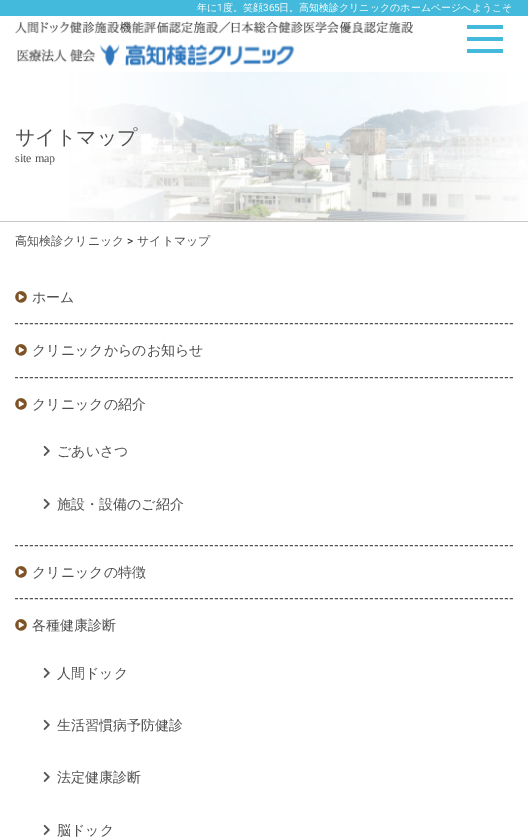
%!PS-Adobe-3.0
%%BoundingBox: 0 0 528 839
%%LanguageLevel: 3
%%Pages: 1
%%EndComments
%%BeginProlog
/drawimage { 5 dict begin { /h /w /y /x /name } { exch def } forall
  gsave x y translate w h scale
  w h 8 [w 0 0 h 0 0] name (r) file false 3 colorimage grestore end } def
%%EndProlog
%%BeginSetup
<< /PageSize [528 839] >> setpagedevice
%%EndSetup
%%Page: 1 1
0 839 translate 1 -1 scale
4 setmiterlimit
1 setgray
0 0 528 839 rectfill
0.263 0.729 0.859 setrgbcolor
0 0 528 16 rectfill
(images/1.raw) 15 21 398 46 drawimage
467 25 36 4 rectfill
467 37 36 4 rectfill
467 49 36 4 rectfill
(images/2.raw) 69 72 459 149 drawimage
0.784 setgray
0 221 528 1 rectfill
0.329 setgray
[3 2] 0 setdash
newpath 15 323.5 moveto 513 323.5 lineto stroke
(images/3.raw) 15 291 12 12 drawimage
newpath 15 377.5 moveto 513 377.5 lineto stroke
(images/3.raw) 15 344 12 12 drawimage
newpath 15 545.5 moveto 513 545.5 lineto stroke
(images/3.raw) 15 398 12 12 drawimage
(images/4.raw) 43 445 7 11 drawimage
(images/4.raw) 43 498 7 11 drawimage
newpath 15 598.5 moveto 513 598.5 lineto stroke
(images/3.raw) 15 566 12 12 drawimage
(images/3.raw) 15 619 12 12 drawimage
(images/4.raw) 43 667 7 11 drawimage
(images/4.raw) 43 719 7 11 drawimage
(images/4.raw) 43 771 7 11 drawimage
(images/4.raw) 43 824 7 11 drawimage
/WenQuanYiZenHei-Medium [10 0 0 -10 0 0] selectfont
1 setgray
197 11 moveto (年に) show
/Roboto-Regular [10 0 0 -10 0 0] selectfont
217 11 moveto (1) show
/WenQuanYiZenHei-Medium [10 0 0 -10 0 0] selectfont
223 11 moveto (度。笑顔) show
/Roboto-Regular [10 0 0 -10 0 0] selectfont
263 11 moveto (365) show
/WenQuanYiZenHei-Medium [10 0 0 -10 0 0] selectfont
279 11 moveto (日。高知検診クリニックのホームページへようこそ) show
/WenQuanYiZenHei-Medium [20 0 0 -20 0 0] selectfont
0.314 setgray
15 144 moveto (サイトマップ) show
/LiberationSerif-Regular [12 0 0 -12 0 0] selectfont
15 162 moveto (site map) show
/WenQuanYiZenHei-Medium [12 0 0 -12 0 0] selectfont
15 245 moveto (高知検診クリニック) show
/Roboto-Regular [12 0 0 -12 0 0] selectfont
0.129 0.145 0.161 setrgbcolor
127 245 moveto (>) show
/WenQuanYiZenHei-Medium [12 0 0 -12 0 0] selectfont
0.314 setgray
137 245 moveto (サイトマップ) show
/WenQuanYiZenHei-Medium [14 0 0 -14 0 0] selectfont
32 302 moveto (ホーム) show
32 355 moveto (クリニックからのお知らせ) show
32 409 moveto (クリニックの紹介) show
57 456 moveto (ごあいさつ) show
57 509 moveto (施設・設備のご紹介) show
32 577 moveto (クリニックの特徴) show
32 630 moveto (各種健康診断) show
57 678 moveto (人間ドック) show
57 730 moveto (生活習慣病予防健診) show
57 782 moveto (法定健康診断) show
57 835 moveto (脳ドック) show
showpage
%%EOF
